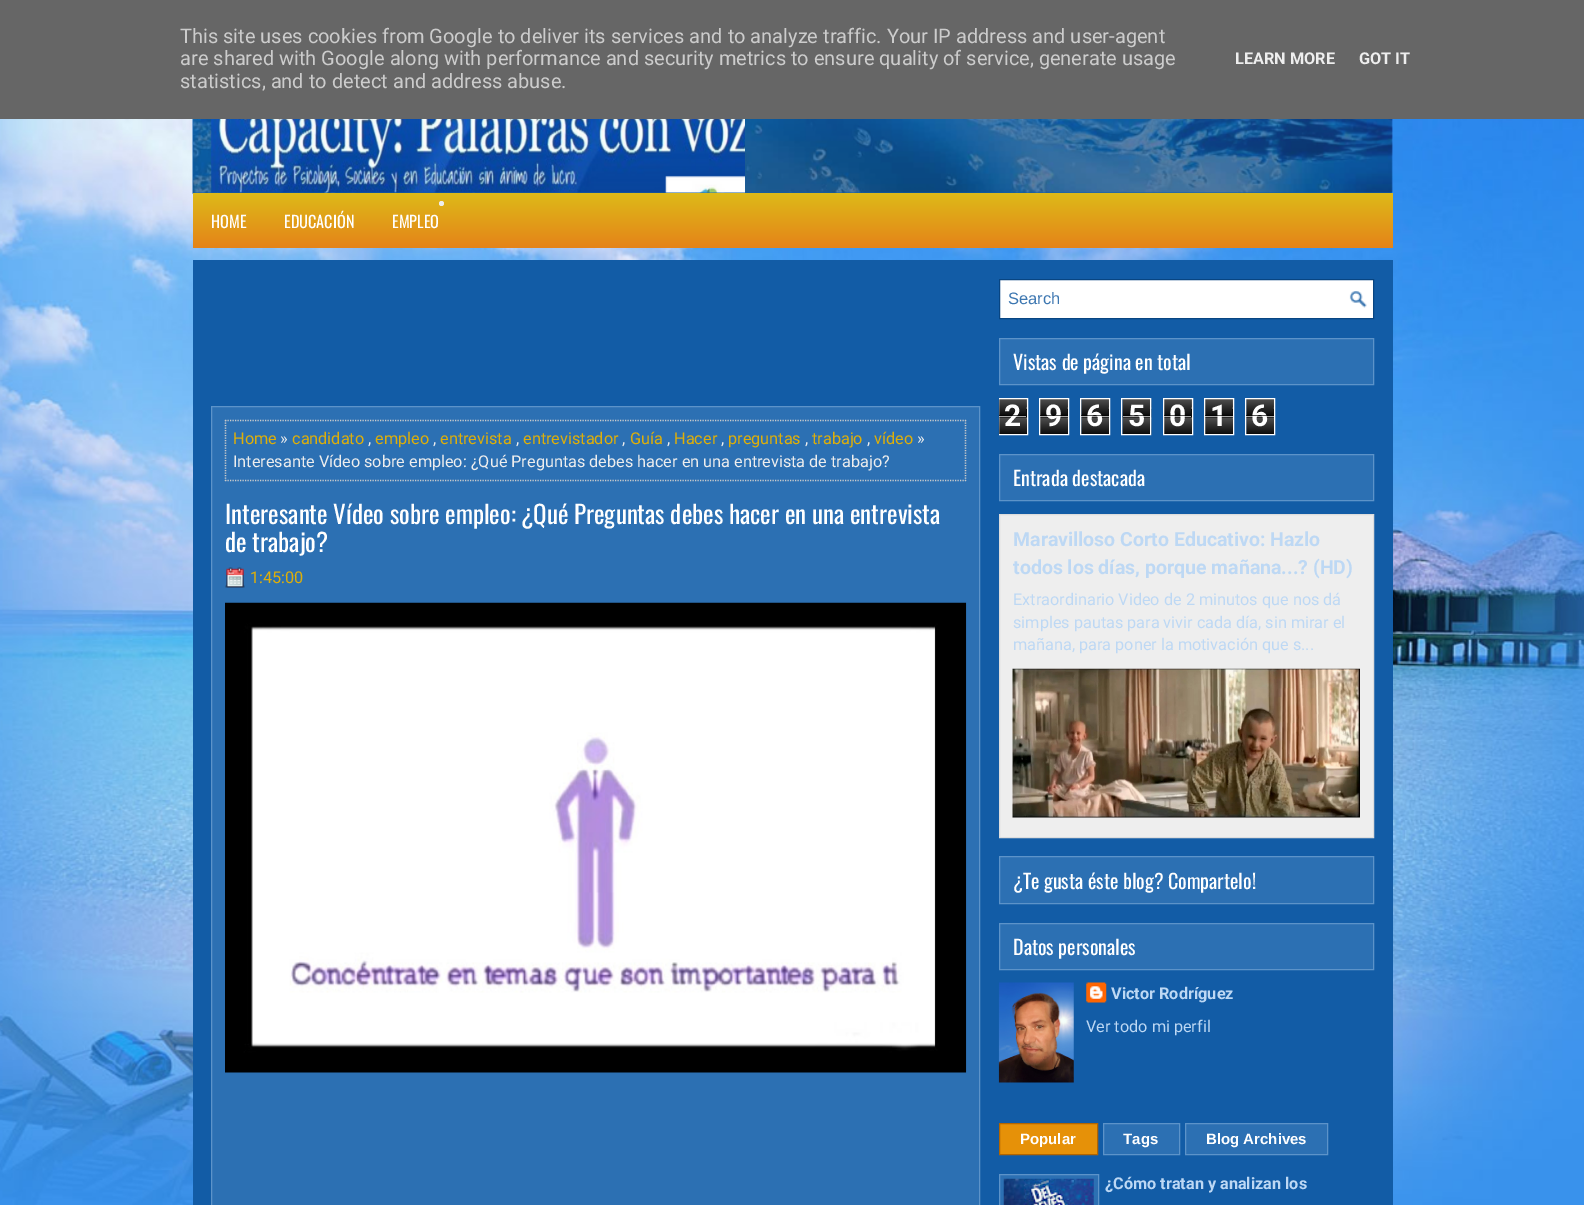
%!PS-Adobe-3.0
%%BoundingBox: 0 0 1584 1205
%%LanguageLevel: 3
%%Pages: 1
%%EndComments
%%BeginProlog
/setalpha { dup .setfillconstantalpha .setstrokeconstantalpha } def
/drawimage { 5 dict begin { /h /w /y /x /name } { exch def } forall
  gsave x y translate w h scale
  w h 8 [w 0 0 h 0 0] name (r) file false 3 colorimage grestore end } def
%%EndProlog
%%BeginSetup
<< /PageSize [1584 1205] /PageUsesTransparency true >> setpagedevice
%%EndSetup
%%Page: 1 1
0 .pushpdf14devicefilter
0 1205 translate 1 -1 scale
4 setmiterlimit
1 setgray
0 0 1584 1205 rectfill
(images/1.raw) 0 119 1584 1086 drawimage
0.4 setgray
0 0 1584 119 rectfill
(images/2.raw) 192 119 1201 75 drawimage
(images/3.raw) 211 119 534 74 drawimage
gsave newpath 193 193 moveto 1393 193 lineto 1393 248 lineto 193 248 lineto closepath clip newpath
<< /ShadingType 2 /ColorSpace /DeviceRGB /Coords [793 192 793 248] /Extend [true true] /Function << /FunctionType 2 /Domain [0 1] /C0 [0.867 0.733 0.098] /C1 [0.898 0.514 0.094] /N 1 >> >> shfill grestore
0.933 setgray
newpath 441.5 203.5 2.5 0 360 arc closepath fill
0.071 0.361 0.651 setrgbcolor
193 260 1200 945 rectfill
0.173 0.439 0.702 setrgbcolor
newpath 211.5 406.5 moveto 979.5 406.5 lineto 979.5 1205.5 lineto 211.5 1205.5 lineto closepath gsave fill grestore
0.361 0.576 0.788 setrgbcolor
stroke
0.8 setgray
1.2 setlinewidth
[1.25 1.25] 0 setdash
newpath 225 420.5 moveto 966 420.5 lineto stroke
newpath 965.5 420 moveto 965.5 481 lineto stroke
newpath 225 480.5 moveto 966 480.5 lineto stroke
newpath 225.5 420 moveto 225.5 481 lineto stroke
(images/4.raw) 225 567 20 21 drawimage
(images/5.raw) 225 602 742 471 drawimage
1 setgray
1000 280 373 38 rectfill
(images/6.raw) 1349 291 18 17 drawimage
0.031 0.271 0.51 setrgbcolor
1 setlinewidth
[] 0 setdash
999.5 279.5 374 39 rectstroke
0.173 0.439 0.702 setrgbcolor
newpath 999.5 338.5 moveto 1373.5 338.5 lineto 1373.5 384.5 lineto 999.5 384.5 lineto closepath gsave fill grestore
0.361 0.576 0.788 setrgbcolor
stroke
(images/7.raw) 998 399 29 36 drawimage
gsave
999 279 375 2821 rectclip
1 setgray
998.5 398.5 29 36 rectstroke
grestore
(images/8.raw) 1040 399 28 35 drawimage
1 setgray
1039.5 398.5 29 36 rectstroke
(images/9.raw) 1081 399 28 35 drawimage
1080.5 398.5 29 36 rectstroke
(images/10.raw) 1122 398 30 37 drawimage
1121.5 398.5 29 36 rectstroke
(images/11.raw) 1164 399 28 35 drawimage
1163.5 398.5 29 36 rectstroke
(images/12.raw) 1205 399 28 35 drawimage
1204.5 398.5 29 36 rectstroke
(images/9.raw) 1246 399 28 35 drawimage
1245.5 398.5 29 36 rectstroke
0.173 0.439 0.702 setrgbcolor
newpath 999.5 454.5 moveto 1373.5 454.5 lineto 1373.5 500.5 lineto 999.5 500.5 lineto closepath gsave fill grestore
0.361 0.576 0.788 setrgbcolor
stroke
0.933 setgray
newpath 999.5 514.5 moveto 1373.5 514.5 lineto 1373.5 837.5 lineto 999.5 837.5 lineto closepath gsave fill grestore
0.867 setgray
stroke
(images/13.raw) 1012 668 348 150 drawimage
0.173 0.439 0.702 setrgbcolor
newpath 999.5 856.5 moveto 1373.5 856.5 lineto 1373.5 903.5 lineto 999.5 903.5 lineto closepath gsave fill grestore
0.361 0.576 0.788 setrgbcolor
stroke
0.173 0.439 0.702 setrgbcolor
newpath 999.5 923.5 moveto 1373.5 923.5 lineto 1373.5 969.5 lineto 999.5 969.5 lineto closepath gsave fill grestore
0.361 0.576 0.788 setrgbcolor
stroke
(images/14.raw) 998 982 76 101 drawimage
(images/15.raw) 1086 982 21 21 drawimage
0.902 0.569 0.031 setrgbcolor
newpath 999.5 1123.5 moveto 1097.5 1123.5 lineto 1097.5 1154.5 lineto 999.5 1154.5 lineto closepath gsave fill grestore
0.702 0.396 0 setrgbcolor
stroke
0.173 0.439 0.702 setrgbcolor
newpath 1103.5 1123.5 moveto 1179.5 1123.5 lineto 1179.5 1154.5 lineto 1103.5 1154.5 lineto closepath gsave fill grestore
0.361 0.576 0.788 setrgbcolor
stroke
0.173 0.439 0.702 setrgbcolor
newpath 1185.5 1123.5 moveto 1327.5 1123.5 lineto 1327.5 1154.5 lineto 1185.5 1154.5 lineto closepath gsave fill grestore
0.361 0.576 0.788 setrgbcolor
stroke
0.173 0.439 0.702 setrgbcolor
newpath 999.5 1174.5 moveto 1098.5 1174.5 lineto 1098.5 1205.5 lineto 999.5 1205.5 lineto closepath gsave fill grestore
0.361 0.576 0.788 setrgbcolor
stroke
(images/16.raw) 1003 1178 91 27 drawimage
/Roboto-Regular [20 0 0 -20 0 0] selectfont
0.8 setgray
180 43 moveto (This site uses cookies from Google to deliver its services and to analyze traffic. Your IP address and user-agent) show
180 65 moveto (are shared with Google along with performance and security metrics to ensure quality of service, generate usage) show
180 88 moveto (statistics, and to detect and address abuse.) show
/Roboto-Bold [16.25 0 0 -16.25 0 0] selectfont
0.933 setgray
1235 64 moveto (LEARN MORE) show
1359 64 moveto (GOT IT) show
/Oswald-Regular [16.25 0 0 -16.25 0 0] selectfont
1 setgray
211 228 moveto (HOME) show
284 228 moveto (EDUCACIÓN) show
392 228 moveto (EMPLEO) show
/Roboto-Regular [16.25 0 0 -16.25 0 0] selectfont
0.875 0.686 0.031 setrgbcolor
233 444 moveto (Home) show
0.933 setgray
280 444 moveto (») show
0.875 0.686 0.031 setrgbcolor
292 444 moveto (candidato) show
375 444 moveto (empleo) show
440 444 moveto (entrevista) show
523 444 moveto (entrevistador) show
630 444 moveto (Guía) show
674 444 moveto (Hacer) show
728 444 moveto (preguntas) show
812 444 moveto (trabajo) show
874 444 moveto (vídeo) show
0.933 setgray
917 444 moveto (») show
368 444 moveto (,) show
433 444 moveto (,) show
516 444 moveto (,) show
622 444 moveto (,) show
667 444 moveto (,) show
721 444 moveto (,) show
805 444 moveto (,) show
867 444 moveto (,) show
233 467 moveto (Interesante Vídeo sobre empleo: ¿Qué Preguntas debes hacer en una entrevista de trabajo?) show
/Oswald-Regular [25 0 0 -25 0 0] selectfont
1 setgray
225 524 moveto (Interesante Vídeo sobre empleo: ¿Qué Preguntas debes hacer en una entrevista) show
225 552 moveto (de trabajo?) show
/Roboto-Regular [16.25 0 0 -16.25 0 0] selectfont
0.875 0.686 0.031 setrgbcolor
250 583 moveto (1:45:00) show
/LiberationSans-Regular [16.5 0 0 -16.5 0 0] selectfont
0.239 0.467 0.694 setrgbcolor
1008 304 moveto (Search) show
/Oswald-Regular [20 0 0 -20 0 0] selectfont
1 setgray
1013 370 moveto (Vistas de página en total) show
/Roboto-Bold [30 0 0 -30 0 0] selectfont
1004 426 moveto (2) show
0.65 setalpha
0 setgray
999 415 27 1 rectfill
1 setgray
999 416 27 1 rectfill
1 setalpha
1045 426 moveto (9) show
0.65 setalpha
0 setgray
1040 415 28 1 rectfill
1 setgray
1040 416 28 1 rectfill
1 setalpha
1086 426 moveto (6) show
0.65 setalpha
0 setgray
1081 415 28 1 rectfill
1 setgray
1081 416 28 1 rectfill
1 setalpha
1128 426 moveto (5) show
0.65 setalpha
0 setgray
1123 415 27 1 rectfill
1 setgray
1123 416 27 1 rectfill
1 setalpha
1169 426 moveto (0) show
0.65 setalpha
0 setgray
1164 415 27 1 rectfill
1 setgray
1164 416 27 1 rectfill
1 setalpha
1210 426 moveto (1) show
0.65 setalpha
0 setgray
1205 415 28 1 rectfill
1 setgray
1205 416 28 1 rectfill
1 setalpha
1251 426 moveto (6) show
0.65 setalpha
0 setgray
1246 415 28 1 rectfill
1 setgray
1246 416 28 1 rectfill
/Oswald-Regular [20 0 0 -20 0 0] selectfont
1 setalpha
1013 486 moveto (Entrada destacada) show
/Roboto-Bold [19.5 0 0 -19.5 0 0] selectfont
0.741 0.847 0.957 setrgbcolor
1013 546 moveto (Maravilloso Corto Educativo: Hazlo) show
1013 574 moveto (todos los días, porque mañana...? \(HD\)) show
/Roboto-Regular [16.25 0 0 -16.25 0 0] selectfont
1013 605 moveto (Extraordinario Video de 2 minutos que nos dá) show
1013 628 moveto (simples pautas para vivir cada día, sin mirar el) show
1013 650 moveto (mañana, para poner la motivación que s...) show
/Oswald-Regular [20 0 0 -20 0 0] selectfont
1 setgray
1013 889 moveto (¿Te gusta éste blog? Compartelo!) show
1013 955 moveto (Datos personales) show
/Roboto-Bold [16.25 0 0 -16.25 0 0] selectfont
0.741 0.847 0.957 setrgbcolor
1111 999 moveto (Victor Rodríguez) show
/Roboto-Regular [16.25 0 0 -16.25 0 0] selectfont
1086 1032 moveto (Ver todo mi perfil) show
/LiberationSans-Bold [15 0 0 -15 0 0] selectfont
1 setgray
1020 1144 moveto (Popular) show
1123 1144 moveto (Tags) show
1206 1144 moveto (Blog Archives) show
/Roboto-Bold [16.25 0 0 -16.25 0 0] selectfont
0.741 0.847 0.957 setrgbcolor
1105 1189 moveto (¿Cómo tratan y analizan los) show
.poppdf14devicefilter showpage
%%EOF
